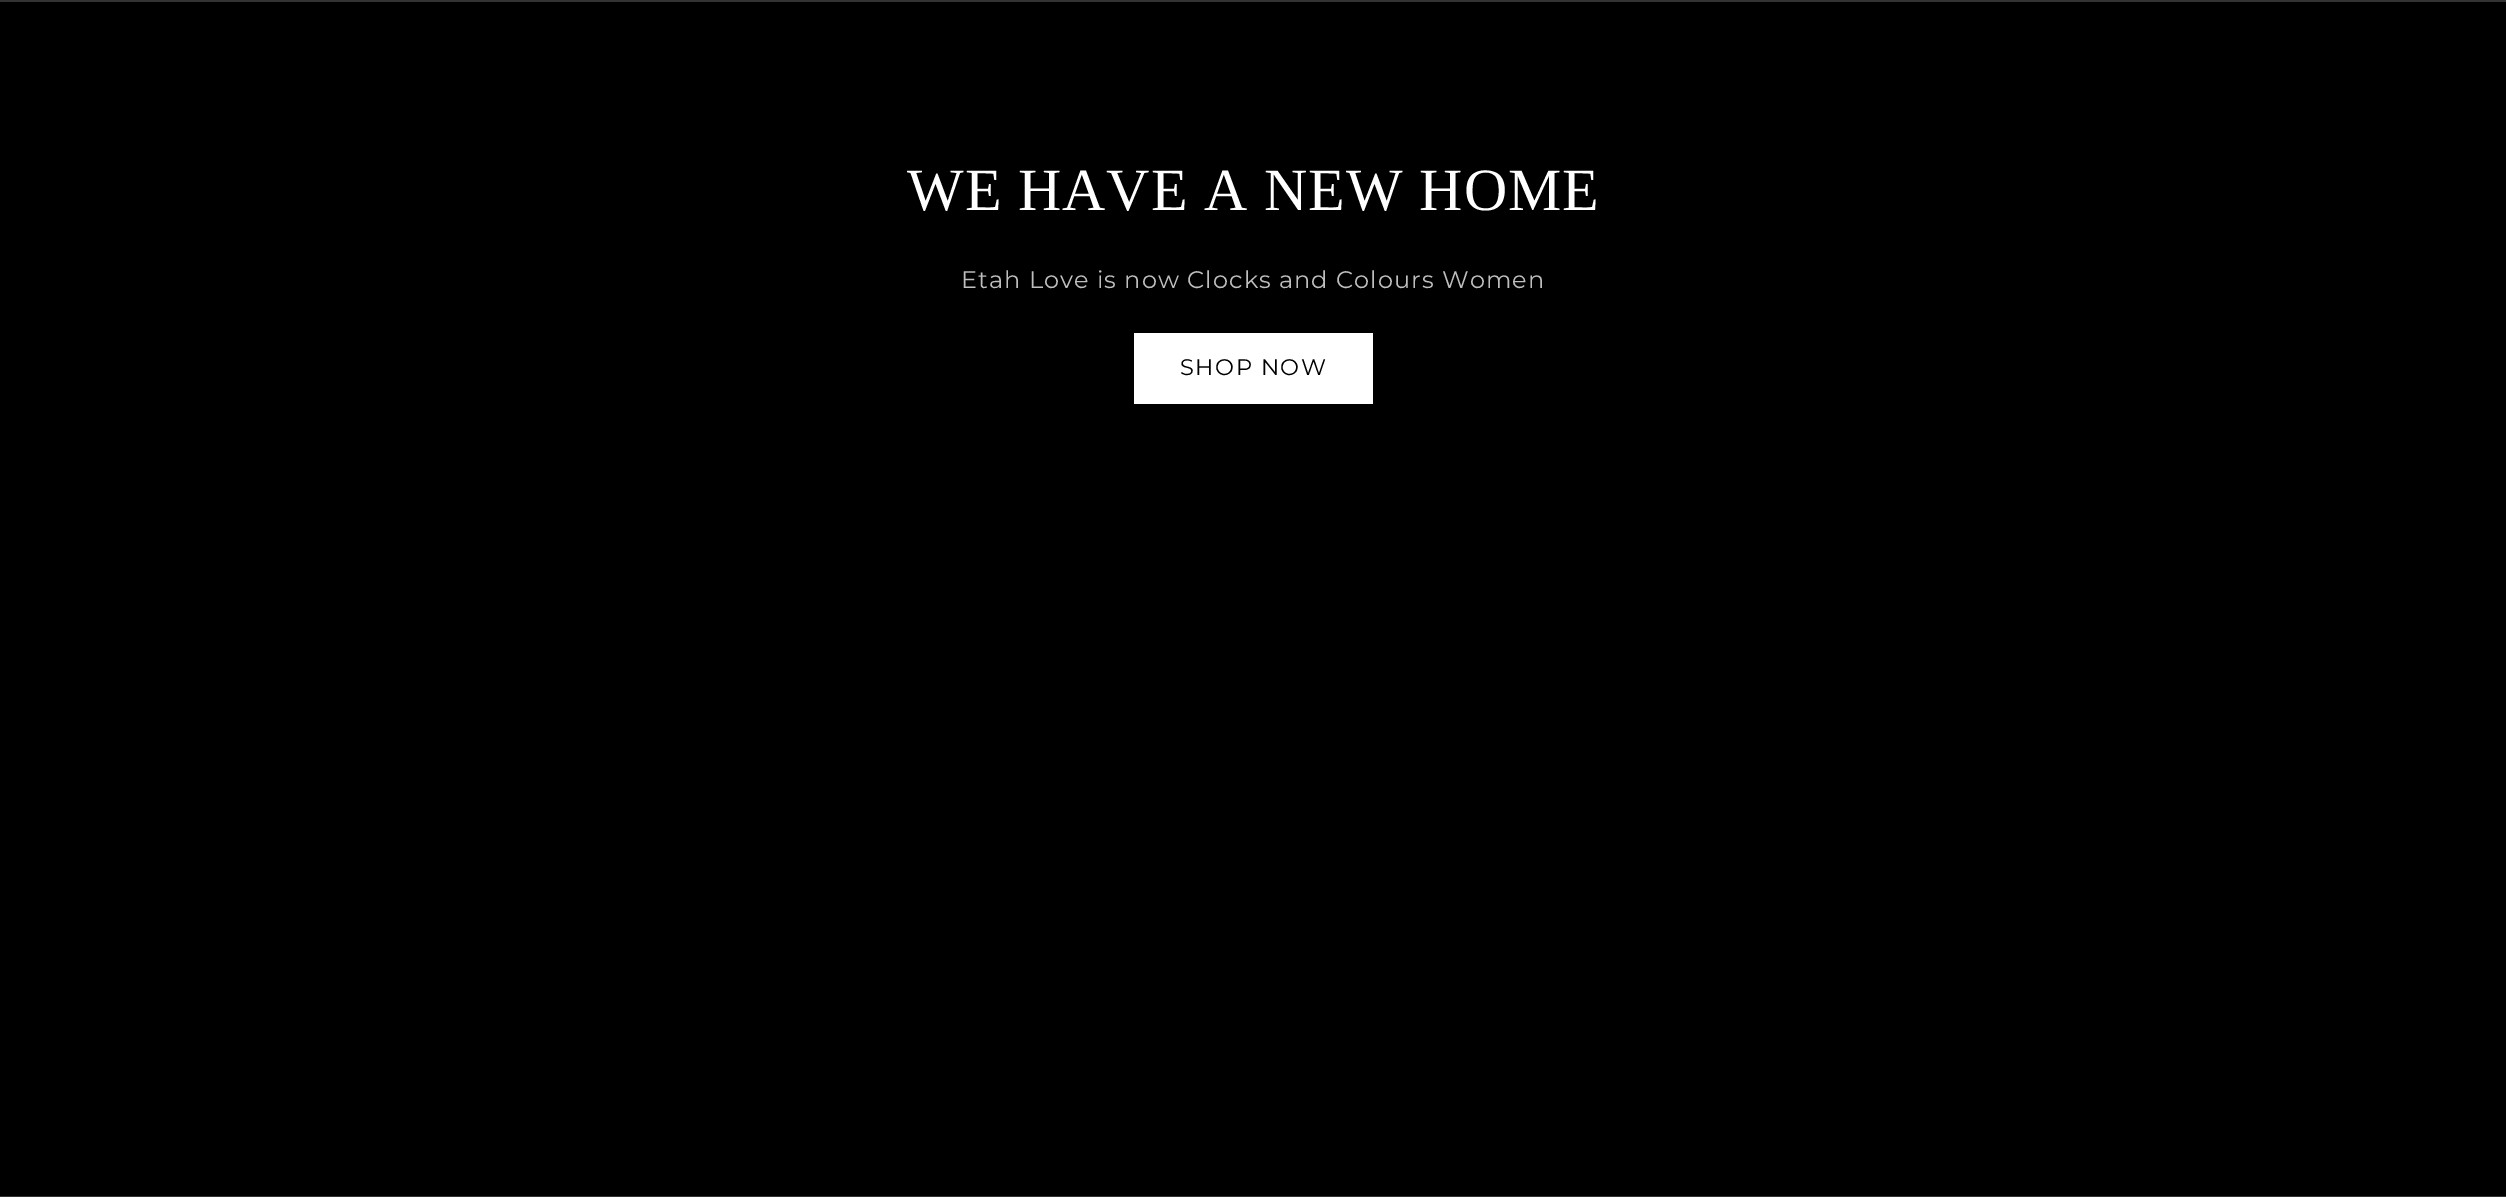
%!PS-Adobe-3.0
%%BoundingBox: 0 0 2506 1197
%%LanguageLevel: 3
%%Pages: 1
%%EndComments
%%BeginProlog
%%EndProlog
%%BeginSetup
<< /PageSize [2506 1197] >> setpagedevice
%%EndSetup
%%Page: 1 1
0 1197 translate 1 -1 scale
4 setmiterlimit
0 setgray
0 0 2506 1197 rectfill
0.2 setgray
0 0 2506 2 rectfill
1 setgray
1134 333 239 71 rectfill
0.2 setgray
0 1196 2506 1 rectfill
/LiberationSerif-Regular [60 0 0 -60 0 0] selectfont
1 setgray
907 210 moveto 0.9 0 (WE HAVE A NEW HOME) ashow
/Montserrat-Regular [24 0 0 -24 0 0] selectfont
0.749 setgray
961 288 moveto 1.05 0 (Etah Love is now Clocks and Colours Women) ashow
/Montserrat-Regular [22.5 0 0 -22.5 0 0] selectfont
0 setgray
1180 375 moveto 1.5 0 (SHOP NOW) ashow
showpage
%%EOF
